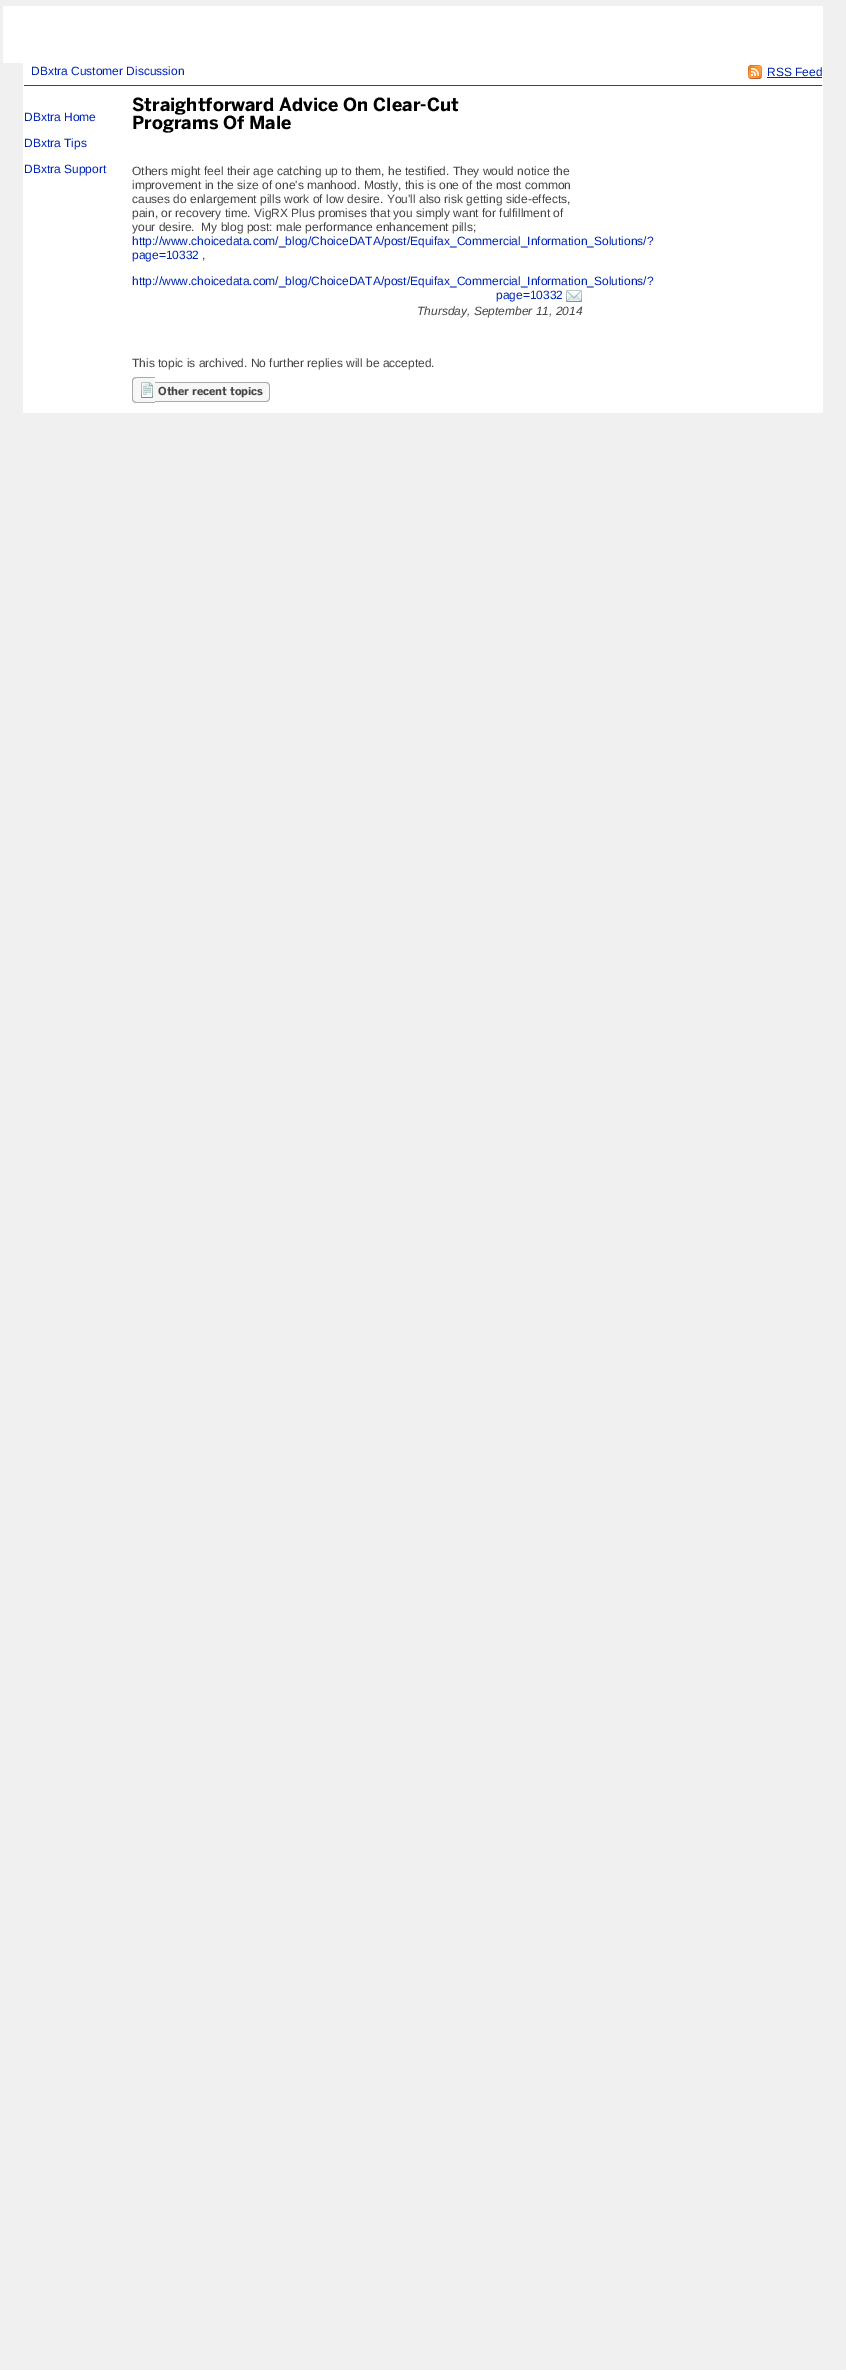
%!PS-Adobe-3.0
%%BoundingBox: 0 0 846 2370
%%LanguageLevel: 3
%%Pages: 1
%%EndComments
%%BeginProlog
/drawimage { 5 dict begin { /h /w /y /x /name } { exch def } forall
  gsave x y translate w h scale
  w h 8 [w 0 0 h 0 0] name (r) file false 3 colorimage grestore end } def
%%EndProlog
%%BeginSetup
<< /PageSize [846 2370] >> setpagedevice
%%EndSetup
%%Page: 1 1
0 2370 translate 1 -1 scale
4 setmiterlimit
0.941 setgray
0 0 846 2370 rectfill
1 setgray
23 63 800 350 rectfill
3 6 820 57 rectfill
(images/1.raw) 748 65 14 14 drawimage
0 0.141 0.702 setrgbcolor
767 77 55 1 rectfill
0.267 setgray
24 85 798 1 rectfill
(images/2.raw) 566 290 16 12 drawimage
0.969 setgray
newpath 136 377 moveto 155 377 lineto 155 403 lineto 136 403 lineto 134 403 132 401 132 399 curveto 132 381 lineto 132 379 134 377 136 377 curveto closepath fill
0.667 setgray
newpath 136 377 moveto 155 377 lineto 155 403 lineto 136 403 lineto 134 403 132 401 132 399 curveto 132 381 lineto 132 379 134 377 136 377 curveto closepath 136 378 moveto 155 378 lineto 155 402 lineto 136 402 lineto 134.5 402 133 400.5 133 399 curveto 133 381 lineto 133 379.5 134.5 378 136 378 curveto closepath eofill
(images/3.raw) 141 382 12 16 drawimage
0.969 setgray
newpath 155 382 moveto 266 382 lineto 268 382 270 384 270 386 curveto 270 398 lineto 270 400 268 402 266 402 curveto 155 402 lineto closepath fill
0.667 setgray
newpath 155 382 moveto 266 382 lineto 268 382 270 384 270 386 curveto 270 398 lineto 270 400 268 402 266 402 curveto 155 402 lineto closepath 155 383 moveto 266 383 lineto 268 383 269 384 269 386 curveto 269 398 lineto 269 400 268 401 266 401 curveto 155 401 lineto closepath eofill
/LiberationSans-Regular [12 0 0 -12 0 0] selectfont
0 0.141 0.702 setrgbcolor
31 75 moveto (DBxtra Customer Discussion) show
767 76 moveto (RSS Feed) show
24 121 moveto (DBxtra Home) show
24 147 moveto (DBxtra Tips) show
24 173 moveto (DBxtra Support) show
/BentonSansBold-Bold [18 0 0 -18 0 0] selectfont
0 setgray
132 111 moveto (Straightforward Advice On Clear-Cut) show
132 129 moveto (Programs Of Male) show
/LiberationSans-Regular [12 0 0 -12 0 0] selectfont
0.267 setgray
132 175 moveto (Others might feel their age catching up to them, he testified. They would notice the) show
132 189 moveto (improvement in the size of one's manhood. Mostly, this is one of the most common) show
132 203 moveto (causes do enlargement pills work of low desire. You'll also risk getting side-effects,) show
132 217 moveto (pain, or recovery time. VigRX Plus promises that you simply want for fulfillment of) show
132 231 moveto (your desire.  My blog post: male performance enhancement pills;) show
0 0.141 0.702 setrgbcolor
132 245 moveto (http://www.choicedata.com/_blog/ChoiceDATA/post/Equifax_Commercial_Information_Solutions/?) show
132 259 moveto (page=10332) show
0.267 setgray
202 259 moveto (,) show
0 0.141 0.702 setrgbcolor
132 285 moveto (http://www.choicedata.com/_blog/ChoiceDATA/post/Equifax_Commercial_Information_Solutions/?) show
496 299 moveto (page=10332) show
/LiberationSans-Italic [12 0 0 -12 0 0] selectfont
0.267 setgray
417 315 moveto (Thursday, September 11, 2014) show
/LiberationSans-Regular [12 0 0 -12 0 0] selectfont
132 367 moveto (This topic is archived. No further replies will be accepted.) show
/BentonSansBold-Bold [11 0 0 -11 0 0] selectfont
158 395 moveto (Other recent topics) show
showpage
%%EOF
